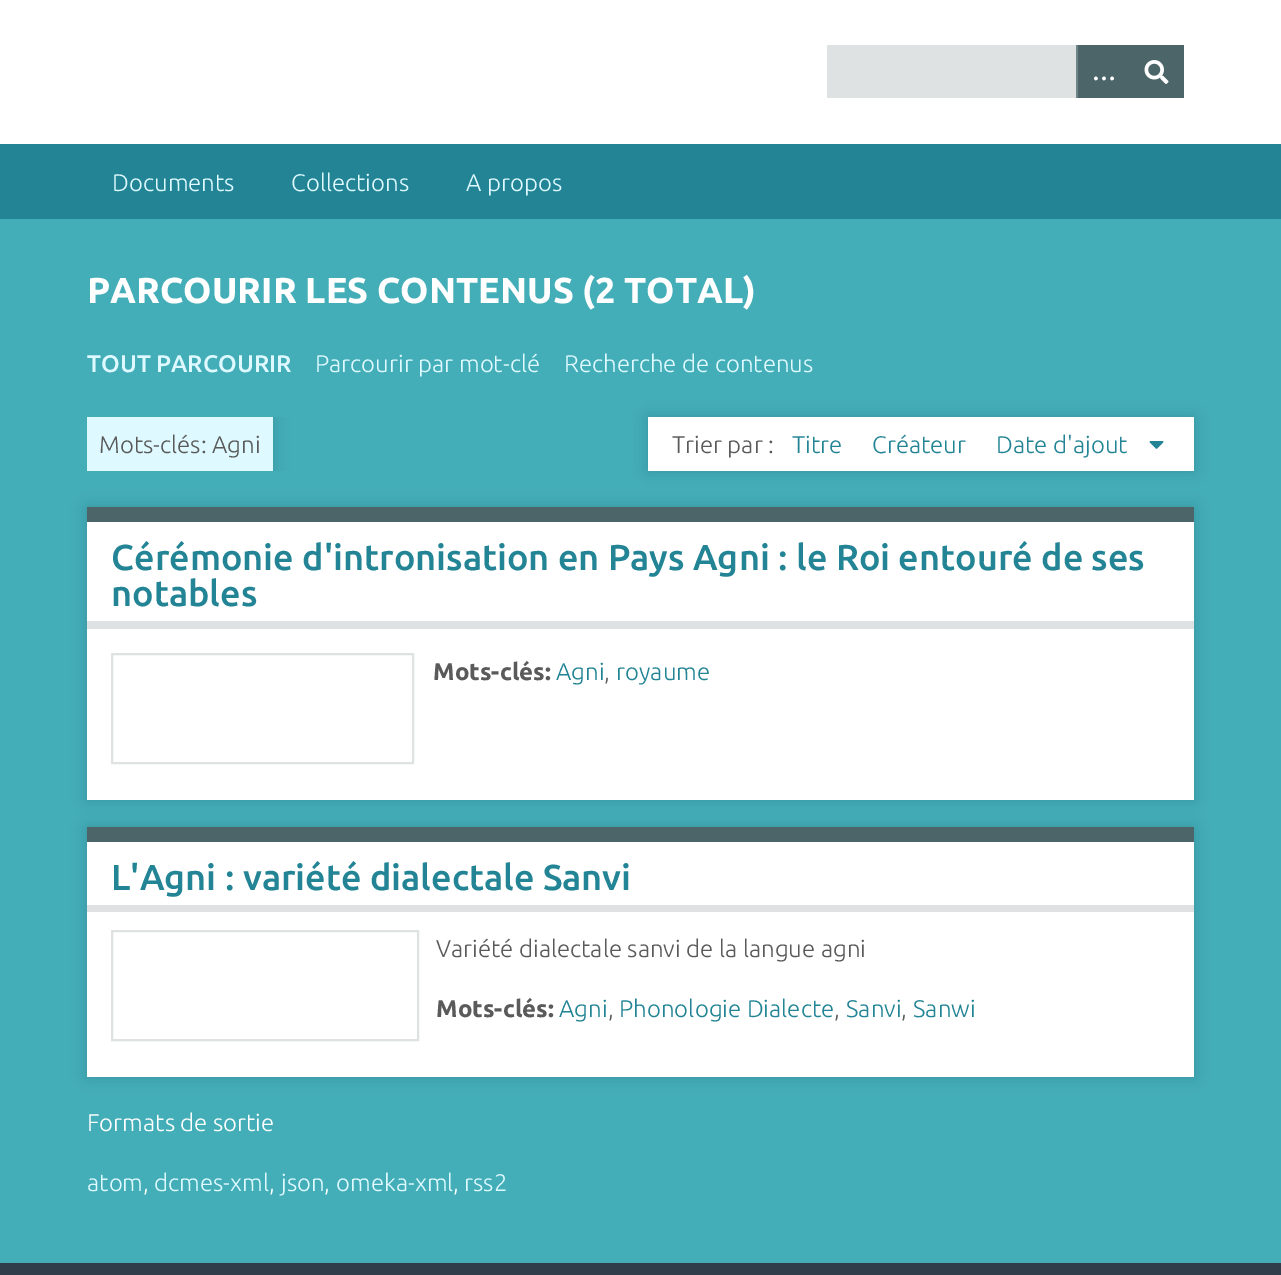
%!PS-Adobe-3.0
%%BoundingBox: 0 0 1281 1275
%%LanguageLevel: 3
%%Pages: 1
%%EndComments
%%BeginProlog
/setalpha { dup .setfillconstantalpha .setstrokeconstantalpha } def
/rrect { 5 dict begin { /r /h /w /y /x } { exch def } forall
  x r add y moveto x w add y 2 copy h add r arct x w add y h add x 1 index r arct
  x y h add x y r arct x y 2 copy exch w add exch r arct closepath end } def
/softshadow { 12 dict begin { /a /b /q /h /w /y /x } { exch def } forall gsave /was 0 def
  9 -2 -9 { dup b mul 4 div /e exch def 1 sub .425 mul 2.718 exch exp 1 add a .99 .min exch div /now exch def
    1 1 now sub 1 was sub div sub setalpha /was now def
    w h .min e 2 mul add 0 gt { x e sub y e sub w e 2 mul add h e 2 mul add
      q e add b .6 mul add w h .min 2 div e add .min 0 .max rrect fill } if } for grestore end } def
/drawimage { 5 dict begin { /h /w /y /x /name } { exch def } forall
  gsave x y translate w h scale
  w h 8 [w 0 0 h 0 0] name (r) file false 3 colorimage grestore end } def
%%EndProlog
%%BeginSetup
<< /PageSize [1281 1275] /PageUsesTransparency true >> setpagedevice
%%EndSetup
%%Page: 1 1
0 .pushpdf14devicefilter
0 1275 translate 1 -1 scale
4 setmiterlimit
0.184 0.243 0.29 setrgbcolor
0 0 1281 1275 rectfill
1 setgray
0 0 1281 144 rectfill
0.875 0.886 0.886 setrgbcolor
827 45 249 53 rectfill
0.294 0.396 0.412 setrgbcolor
1078 45 106 53 rectfill
0.435 0.518 0.529 setrgbcolor
1076 45 2 53 rectfill
(images/1.raw) 1144 60 25 24 drawimage
0.133 0.518 0.58 setrgbcolor
0 144 1281 75 rectfill
0.263 0.678 0.722 setrgbcolor
0 219 1281 1044 rectfill
gsave
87 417 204 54 rectclip
0 setgray
87 417 186 54 0 7.5 0.15 softshadow
grestore
0.871 0.976 1 setrgbcolor
87 417 186 54 rectfill
0 setgray
648 417 546 54 0 7.5 0.15 softshadow
1 setgray
648 417 546 54 rectfill
(images/2.raw) 1149 441 15 8 drawimage
0 setgray
87 507 1107 293 0 7.5 0.15 softshadow
1 setgray
87 522 1107 278 rectfill
0.294 0.396 0.412 setrgbcolor
87 507 1107 15 rectfill
0.875 0.886 0.886 setrgbcolor
87 621 1107 8 rectfill
2 setlinewidth
112 654 301 109 rectstroke
0 setgray
87 827 1107 250 0 7.5 0.15 softshadow
1 setgray
87 842 1107 235 rectfill
0.294 0.396 0.412 setrgbcolor
87 827 1107 15 rectfill
0.875 0.886 0.886 setrgbcolor
87 905 1107 7 rectfill
112 931 306 109 rectstroke
/LiberationSerif-Bold [24 0 0 -24 0 0] selectfont
1 setgray
1092 80 moveto (…) show
/Ubuntu-Light [24 0 0 -24 0 0] selectfont
0.871 0.976 1 setrgbcolor
112 191 moveto (Documents) show
291 191 moveto (Collections) show
466 191 moveto (A propos) show
/Ubuntu-Bold [36 0 0 -36 0 0] selectfont
1 setgray
87 303 moveto (PARCOURIR LES CONTENUS \(2 TOTAL\)) show
/Ubuntu-Medium [24 0 0 -24 0 0] selectfont
0.871 0.976 1 setrgbcolor
87 372 moveto (TOUT PARCOURIR) show
/Ubuntu-Light [24 0 0 -24 0 0] selectfont
315 372 moveto (Parcourir par mot-clé) show
564 372 moveto (Recherche de contenus) show
0.353 setgray
99 453 moveto (Mots-clés: Agni) show
672 453 moveto (Trier par :) show
0.133 0.518 0.58 setrgbcolor
792 453 moveto (Titre) show
872 453 moveto (Créateur) show
996 453 moveto (Date d'ajout) show
/Ubuntu-Medium [36 0 0 -36 0 0] selectfont
111 570 moveto (Cérémonie d'intronisation en Pays Agni : le Roi entouré de ses) show
111 606 moveto (notables) show
/Ubuntu-Bold [24 0 0 -24 0 0] selectfont
0.353 setgray
433 680 moveto (Mots-clés:) show
/Ubuntu-Light [24 0 0 -24 0 0] selectfont
0.133 0.518 0.58 setrgbcolor
556 680 moveto (Agni) show
0.353 setgray
604 680 moveto (,) show
0.133 0.518 0.58 setrgbcolor
616 680 moveto (royaume) show
/Ubuntu-Medium [36 0 0 -36 0 0] selectfont
111 890 moveto (L'Agni : variété dialectale Sanvi) show
/Ubuntu-Light [24 0 0 -24 0 0] selectfont
0.353 setgray
436 957 moveto (Variété dialectale sanvi de la langue agni) show
/Ubuntu-Bold [24 0 0 -24 0 0] selectfont
436 1017 moveto (Mots-clés:) show
/Ubuntu-Light [24 0 0 -24 0 0] selectfont
0.133 0.518 0.58 setrgbcolor
559 1017 moveto (Agni) show
0.353 setgray
608 1017 moveto (,) show
0.133 0.518 0.58 setrgbcolor
619 1017 moveto (Phonologie Dialecte) show
0.353 setgray
834 1017 moveto (,) show
0.133 0.518 0.58 setrgbcolor
846 1017 moveto (Sanvi) show
0.353 setgray
901 1017 moveto (,) show
0.133 0.518 0.58 setrgbcolor
913 1017 moveto (Sanwi) show
1 setgray
87 1131 moveto (Formats de sortie) show
0.871 0.976 1 setrgbcolor
87 1191 moveto (atom) show
1 setgray
143 1191 moveto (,) show
0.871 0.976 1 setrgbcolor
154 1191 moveto (dcmes-xml) show
1 setgray
269 1191 moveto (,) show
0.871 0.976 1 setrgbcolor
281 1191 moveto (json) show
1 setgray
324 1191 moveto (,) show
0.871 0.976 1 setrgbcolor
336 1191 moveto (omeka-xml) show
1 setgray
453 1191 moveto (,) show
0.871 0.976 1 setrgbcolor
464 1191 moveto (rss2) show
.poppdf14devicefilter showpage
%%EOF
